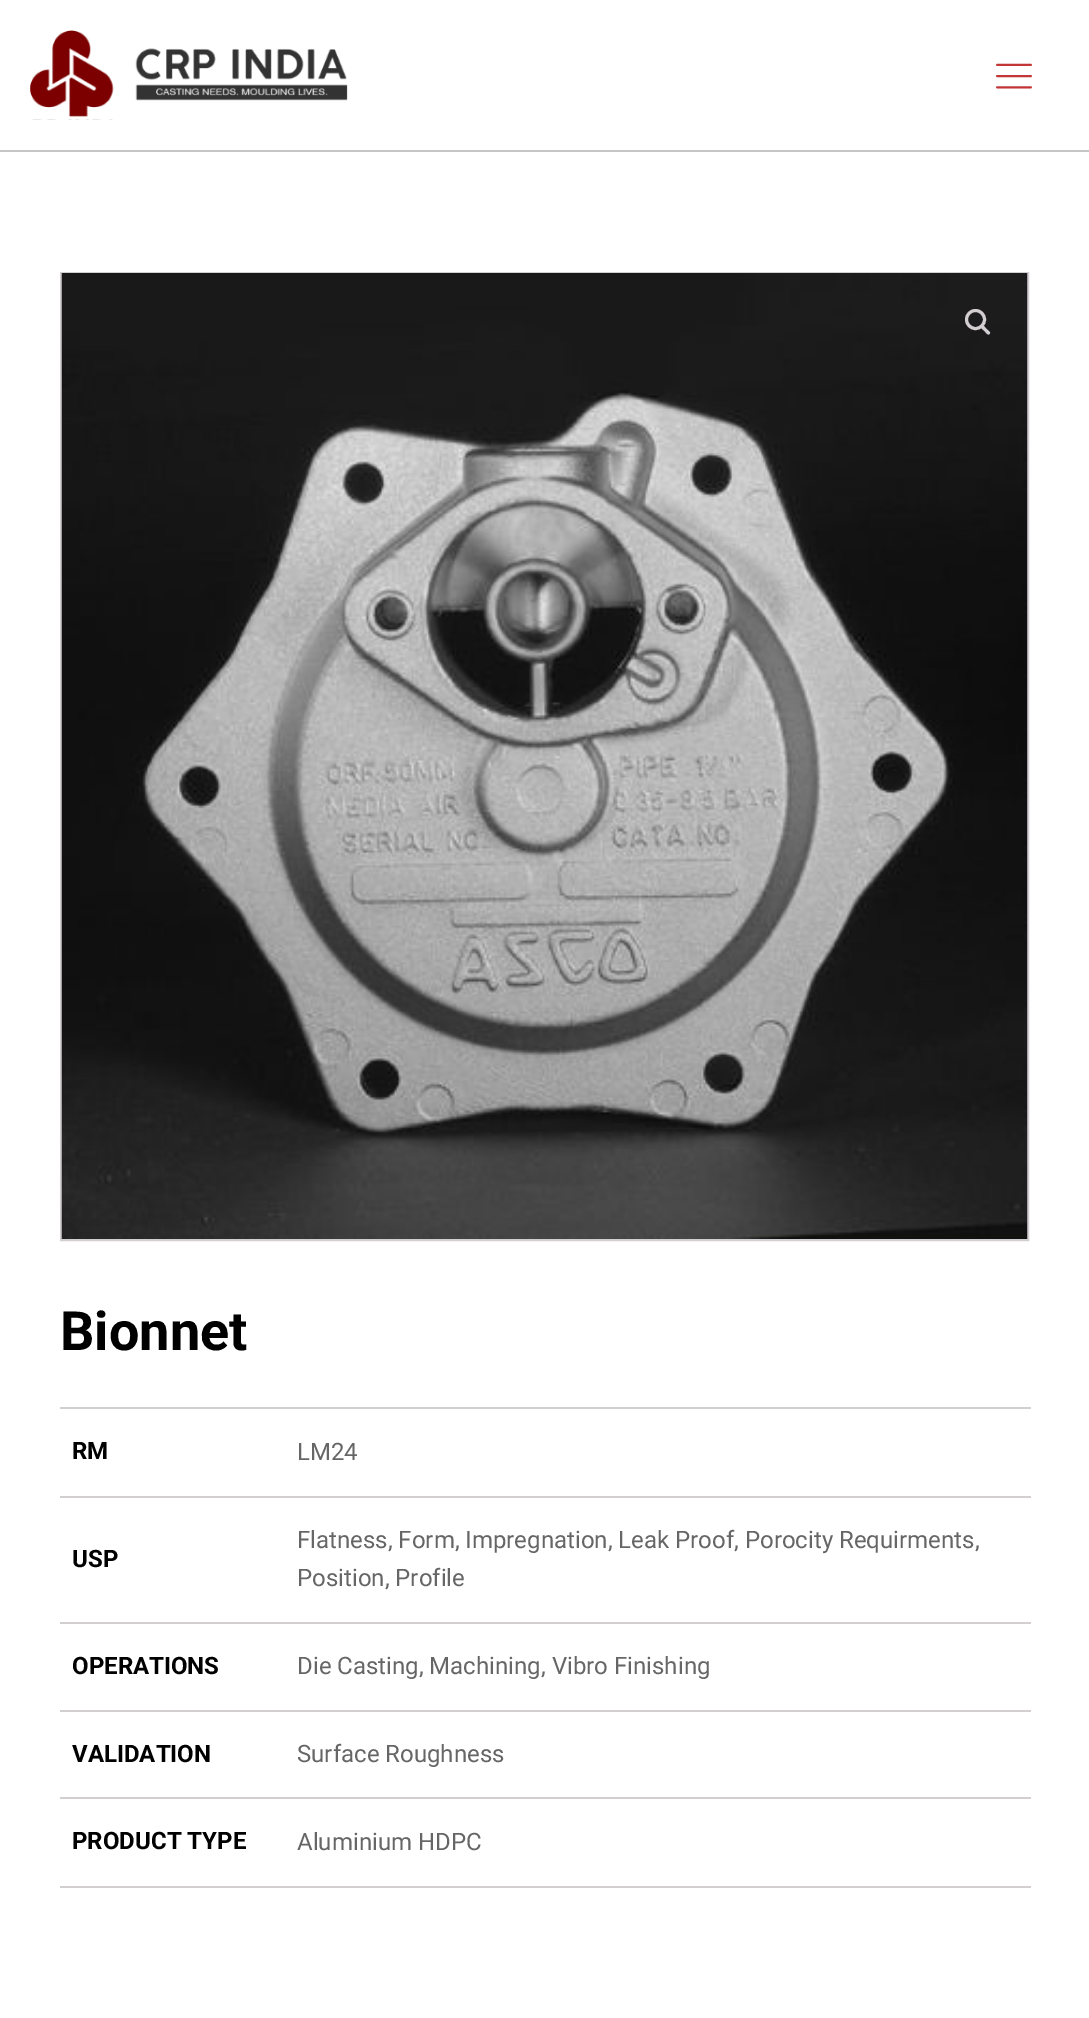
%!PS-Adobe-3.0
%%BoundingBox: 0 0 1089 2018
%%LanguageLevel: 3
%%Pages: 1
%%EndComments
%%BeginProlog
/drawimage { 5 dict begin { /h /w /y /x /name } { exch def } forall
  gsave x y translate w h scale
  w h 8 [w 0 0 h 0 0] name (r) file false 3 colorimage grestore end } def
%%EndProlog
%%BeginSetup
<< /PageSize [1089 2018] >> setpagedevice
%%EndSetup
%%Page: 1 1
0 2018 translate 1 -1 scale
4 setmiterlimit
1 setgray
0 0 1089 2018 rectfill
0.776 setgray
0 150 1089 2 rectfill
(images/1.raw) 30 30 318 90 drawimage
(images/2.raw) 996 63 36 26 drawimage
0.827 0.808 0.824 setrgbcolor
2 setlinewidth
61 273 967 967 rectstroke
(images/3.raw) 61 273 967 966 drawimage
3 setlinewidth
newpath 975.5 319.5 9 0 360 arc closepath stroke
newpath 981.5 326 moveto 983 324 985.5 328 986.5 329 curveto 987.5 330 991.5 332.5 989.5 334 curveto 988 336 985.5 332 984.5 331 curveto 983.5 330 979.5 327.5 981.5 326 curveto closepath fill
60 1407 971 2 rectfill
60 1496 971 2 rectfill
60 1622 971 2 rectfill
60 1710 971 2 rectfill
60 1797 971 2 rectfill
60 1886 971 2 rectfill
/Roboto-Bold [54 0 0 -54 0 0] selectfont
0 setgray
60 1350 moveto (Bionnet) show
/Roboto-Bold [24 0 0 -24 0 0] selectfont
72 1459 moveto (RM) show
/Roboto-Regular [24 0 0 -24 0 0] selectfont
0.4 setgray
297 1460 moveto (LM24) show
/Roboto-Bold [24 0 0 -24 0 0] selectfont
0 setgray
72 1567 moveto (USP) show
/Roboto-Regular [24 0 0 -24 0 0] selectfont
0.4 setgray
297 1548 moveto (Flatness, Form, Impregnation, Leak Proof, Porocity Requirments,) show
297 1586 moveto (Position, Profile) show
/Roboto-Bold [24 0 0 -24 0 0] selectfont
0 setgray
72 1674 moveto (OPERATIONS) show
/Roboto-Regular [24 0 0 -24 0 0] selectfont
0.4 setgray
297 1674 moveto (Die Casting, Machining, Vibro Finishing) show
/Roboto-Bold [24 0 0 -24 0 0] selectfont
0 setgray
72 1762 moveto (VALIDATION) show
/Roboto-Regular [24 0 0 -24 0 0] selectfont
0.4 setgray
297 1762 moveto (Surface Roughness) show
/Roboto-Bold [24 0 0 -24 0 0] selectfont
0 setgray
72 1849 moveto (PRODUCT TYPE) show
/Roboto-Regular [24 0 0 -24 0 0] selectfont
0.4 setgray
297 1850 moveto (Aluminium HDPC) show
showpage
%%EOF
